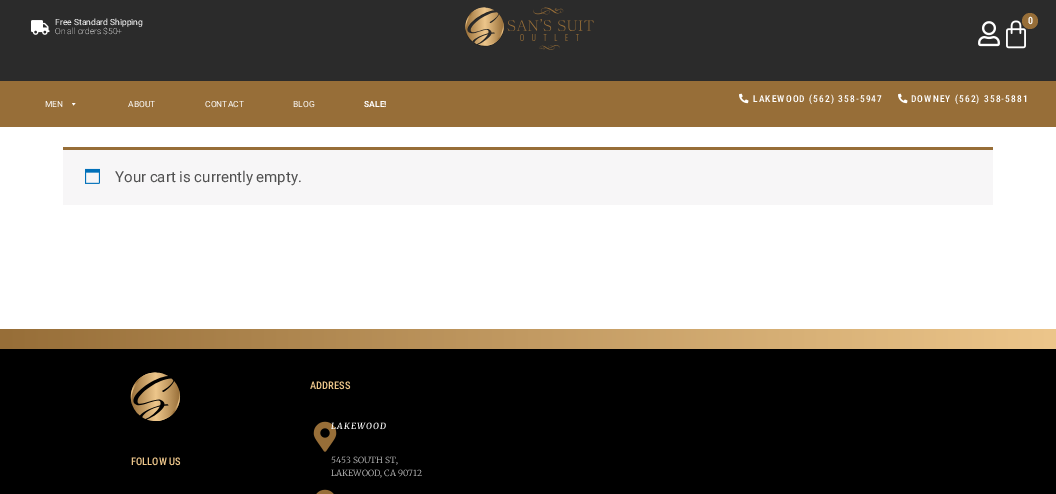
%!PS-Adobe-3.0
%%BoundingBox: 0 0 1056 494
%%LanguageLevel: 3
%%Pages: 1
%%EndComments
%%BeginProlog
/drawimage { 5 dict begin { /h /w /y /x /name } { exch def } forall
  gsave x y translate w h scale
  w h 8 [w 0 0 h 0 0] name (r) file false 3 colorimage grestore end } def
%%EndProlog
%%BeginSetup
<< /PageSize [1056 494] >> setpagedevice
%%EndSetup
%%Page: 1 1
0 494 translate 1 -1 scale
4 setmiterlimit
1 setgray
0 0 1056 494 rectfill
0.169 setgray
0 0 1056 81 rectfill
(images/1.raw) 31 20 19 15 drawimage
(images/2.raw) 465 7 129 43 drawimage
(images/3.raw) 978 21 22 26 drawimage
(images/4.raw) 1006 20 20 29 drawimage
0.592 0.431 0.22 setrgbcolor
newpath 1030 21 8 0 360 arc closepath fill
0 81 1056 46 rectfill
1 setgray
newpath 75.5 103 moveto 73.5 105.5 lineto 72 103 lineto closepath fill
(images/5.raw) 739 93 10 11 drawimage
(images/5.raw) 898 93 10 11 drawimage
0.969 0.965 0.969 setrgbcolor
63 150 930 55 rectfill
0.592 0.431 0.22 setrgbcolor
63 147 930 3 rectfill
(images/6.raw) 85 168 15 16 drawimage
gsave newpath 0 329 moveto 1056 329 lineto 1056 349 lineto 0 349 lineto closepath clip newpath
<< /ShadingType 2 /ColorSpace /DeviceRGB /Coords [1056 339 0 339] /Extend [true true] /Function << /FunctionType 2 /Domain [0 1] /C0 [0.929 0.776 0.545] /C1 [0.592 0.431 0.22] /N 1 >> >> shfill grestore
0 setgray
0 349 1056 145 rectfill
(images/7.raw) 130 372 51 49 drawimage
(images/8.raw) 313 421 24 31 drawimage
(images/9.raw) 316 489 18 5 drawimage
/Roboto-Regular [8.5 0 0 -8.5 0 0] selectfont
1 setgray
55 25 moveto (Free Standard Shipping) show
/Roboto-ExtraLight [8.5 0 0 -8.5 0 0] selectfont
55 34 moveto (On all orders $50+) show
/RobotoCondensed-SemiBold [10 0 0 -10 0 0] selectfont
1028 24 moveto (0) show
/Roboto-Regular [8.5 0 0 -8.5 0 0] selectfont
45 107 moveto (MEN) show
128 107 moveto (ABOUT) show
205 107 moveto (CONTACT) show
293 107 moveto (BLOG) show
/Roboto-Bold [8.5 0 0 -8.5 0 0] selectfont
364 107 moveto (SALE!) show
/RobotoCondensed-Medium [9.5 0 0 -9.5 0 0] selectfont
753 102 moveto 1.1 0 (LAKEWOOD \(562\) 358-5947) ashow
911 102 moveto 1.1 0 (DOWNEY \(562\) 358-5881) ashow
/Roboto-Regular [15 0 0 -15 0 0] selectfont
0.318 setgray
115 182 moveto (Your cart is currently empty.) show
/RobotoCondensed-Medium [10.5 0 0 -10.5 0 0] selectfont
0.929 0.776 0.545 setrgbcolor
131 465 moveto (FOLLOW US) show
310 389 moveto (ADDRESS) show
/Merriweather-MediumItalic [8.5 0 0 -8.5 0 0] selectfont
1 setgray
331 429 moveto 1.1 0 (LAKEWOOD) ashow
/Merriweather-Light [8.5 0 0 -8.5 0 0] selectfont
0.765 setgray
331 463 moveto (5453 SOUTH ST,) show
331 476 moveto (LAKEWOOD, CA 90712) show
showpage
%%EOF
